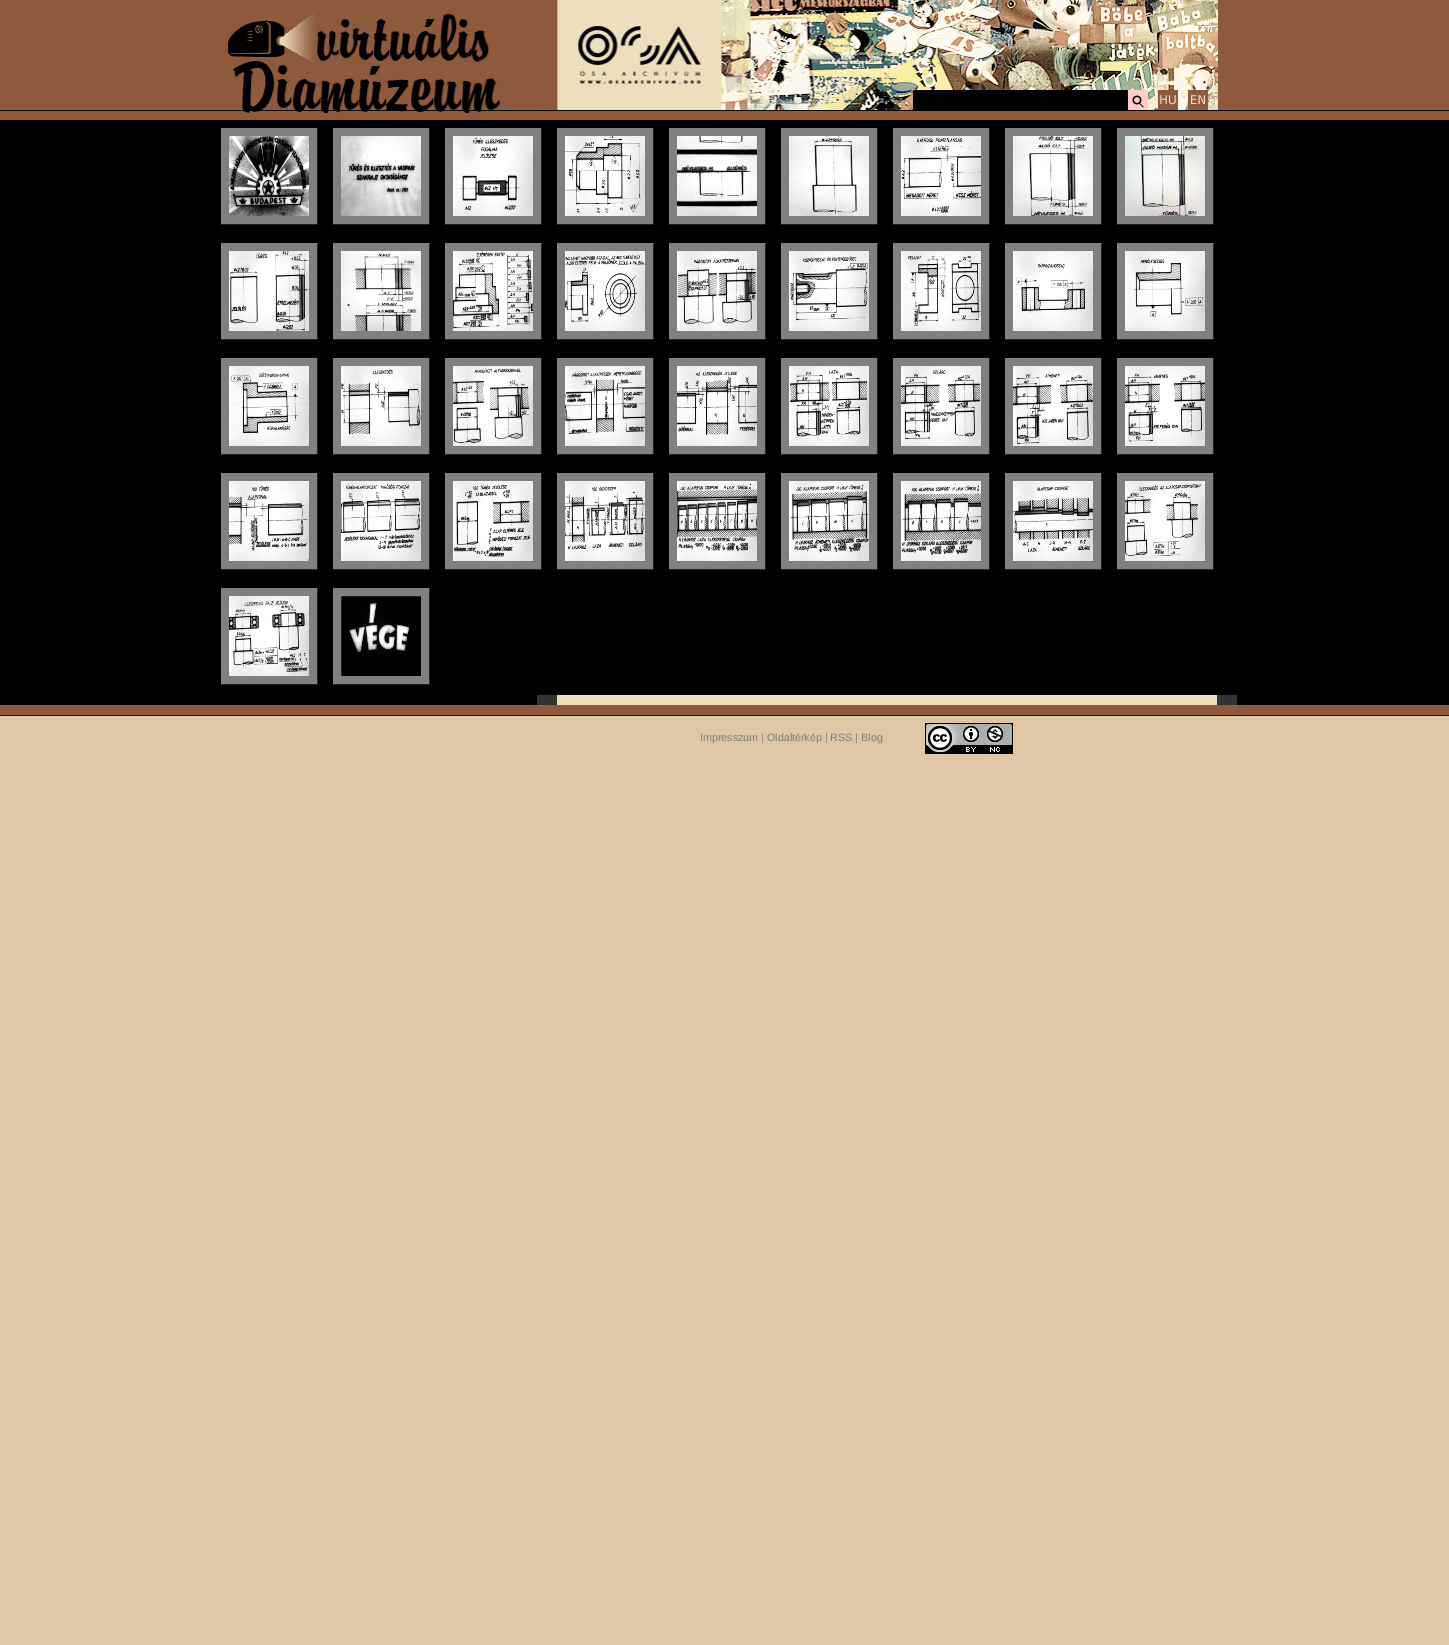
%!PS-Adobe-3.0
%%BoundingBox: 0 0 1449 1645
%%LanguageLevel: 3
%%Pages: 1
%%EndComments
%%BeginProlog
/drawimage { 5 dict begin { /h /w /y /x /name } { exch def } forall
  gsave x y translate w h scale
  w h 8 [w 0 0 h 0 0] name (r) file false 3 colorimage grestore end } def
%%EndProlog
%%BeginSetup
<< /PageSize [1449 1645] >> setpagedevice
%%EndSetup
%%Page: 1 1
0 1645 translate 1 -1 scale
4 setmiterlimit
0.871 0.78 0.647 setrgbcolor
0 0 1449 1645 rectfill
(images/1.raw) 0 0 1449 120 drawimage
(images/2.raw) 228 0 990 113 drawimage
0 setgray
913 91 214 20 rectfill
0 120 1449 575 rectfill
0.502 setgray
8 setlinewidth
225 132 88 88 rectstroke
337 132 88 88 rectstroke
449 132 88 88 rectstroke
561 132 88 88 rectstroke
673 132 88 88 rectstroke
785 132 88 88 rectstroke
897 132 88 88 rectstroke
1009 132 88 88 rectstroke
1121 132 88 88 rectstroke
(images/3.raw) 229 136 80 80 drawimage
(images/4.raw) 341 136 80 80 drawimage
(images/5.raw) 453 136 80 80 drawimage
(images/6.raw) 565 136 80 80 drawimage
(images/7.raw) 677 136 80 80 drawimage
(images/8.raw) 789 136 80 80 drawimage
(images/9.raw) 901 136 80 80 drawimage
(images/10.raw) 1013 136 80 80 drawimage
(images/11.raw) 1125 136 80 80 drawimage
225 247 88 88 rectstroke
337 247 88 88 rectstroke
449 247 88 88 rectstroke
561 247 88 88 rectstroke
673 247 88 88 rectstroke
785 247 88 88 rectstroke
897 247 88 88 rectstroke
1009 247 88 88 rectstroke
1121 247 88 88 rectstroke
(images/12.raw) 229 251 80 80 drawimage
(images/13.raw) 341 251 80 80 drawimage
(images/14.raw) 453 251 80 80 drawimage
(images/15.raw) 565 251 80 80 drawimage
(images/16.raw) 677 251 80 80 drawimage
(images/17.raw) 789 251 80 80 drawimage
(images/18.raw) 901 251 80 80 drawimage
(images/19.raw) 1013 251 80 80 drawimage
(images/20.raw) 1125 251 80 80 drawimage
225 362 88 88 rectstroke
337 362 88 88 rectstroke
449 362 88 88 rectstroke
561 362 88 88 rectstroke
673 362 88 88 rectstroke
785 362 88 88 rectstroke
897 362 88 88 rectstroke
1009 362 88 88 rectstroke
1121 362 88 88 rectstroke
(images/21.raw) 229 366 80 80 drawimage
(images/22.raw) 341 366 80 80 drawimage
(images/23.raw) 453 366 80 80 drawimage
(images/24.raw) 565 366 80 80 drawimage
(images/25.raw) 677 366 80 80 drawimage
(images/26.raw) 789 366 80 80 drawimage
(images/27.raw) 901 366 80 80 drawimage
(images/28.raw) 1013 366 80 80 drawimage
(images/29.raw) 1125 366 80 80 drawimage
225 477 88 88 rectstroke
337 477 88 88 rectstroke
449 477 88 88 rectstroke
561 477 88 88 rectstroke
673 477 88 88 rectstroke
785 477 88 88 rectstroke
897 477 88 88 rectstroke
1009 477 88 88 rectstroke
1121 477 88 88 rectstroke
(images/30.raw) 229 481 80 80 drawimage
(images/31.raw) 341 481 80 80 drawimage
(images/32.raw) 453 481 80 80 drawimage
(images/33.raw) 565 481 80 80 drawimage
(images/34.raw) 677 481 80 80 drawimage
(images/35.raw) 789 481 80 80 drawimage
(images/36.raw) 901 481 80 80 drawimage
(images/37.raw) 1013 481 80 80 drawimage
(images/38.raw) 1125 481 80 80 drawimage
225 592 88 88 rectstroke
337 592 88 88 rectstroke
(images/39.raw) 229 596 80 80 drawimage
(images/40.raw) 349 602 61 53 drawimage
(images/41.raw) 0 695 1449 21 drawimage
(images/42.raw) 213 695 1024 10 drawimage
(images/43.raw) 925 723 88 31 drawimage
/LiberationSans-Regular [10.7 0 0 -10.7 0 0] selectfont
700 741 moveto (Impresszum | Oldaltérkép | RSS | Blog) show
showpage
%%EOF
